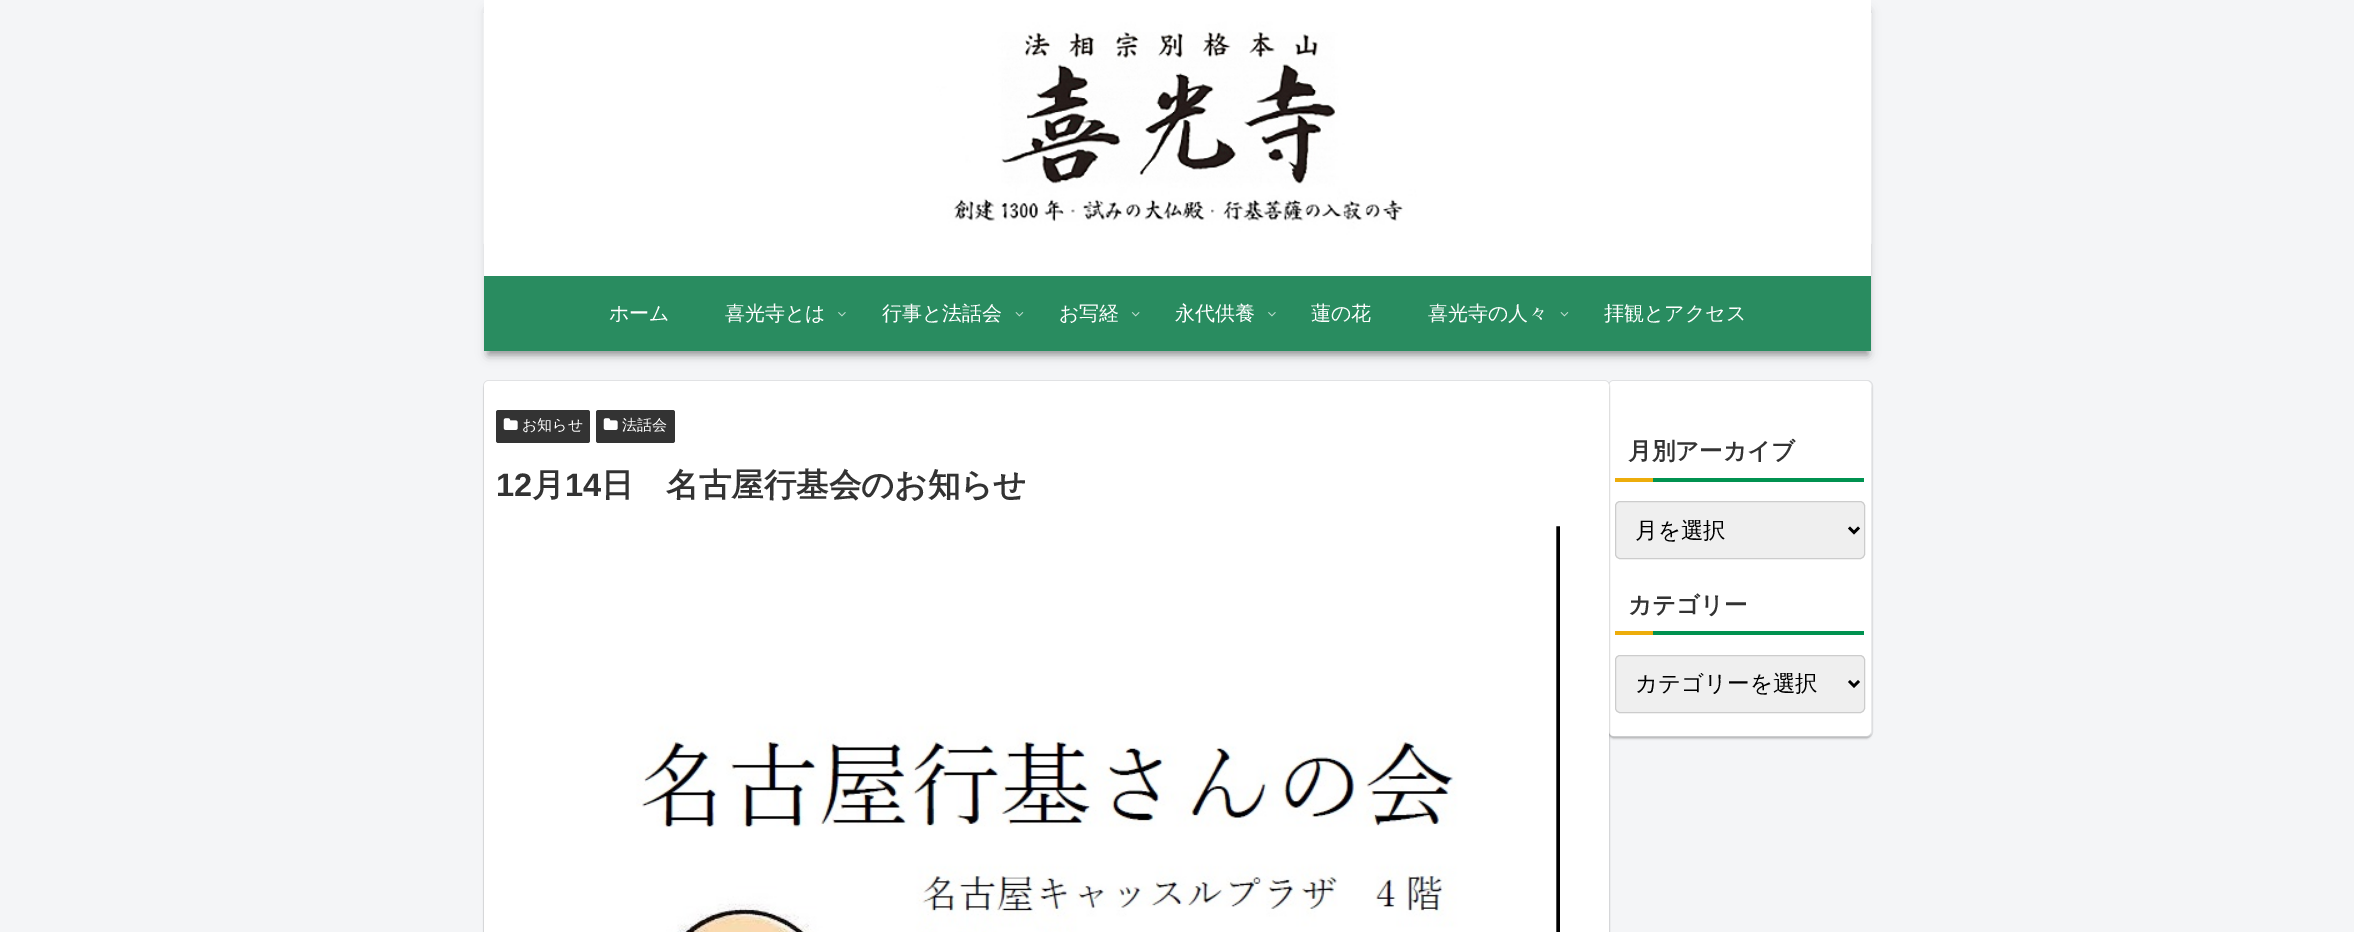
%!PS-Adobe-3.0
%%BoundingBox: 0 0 2354 932
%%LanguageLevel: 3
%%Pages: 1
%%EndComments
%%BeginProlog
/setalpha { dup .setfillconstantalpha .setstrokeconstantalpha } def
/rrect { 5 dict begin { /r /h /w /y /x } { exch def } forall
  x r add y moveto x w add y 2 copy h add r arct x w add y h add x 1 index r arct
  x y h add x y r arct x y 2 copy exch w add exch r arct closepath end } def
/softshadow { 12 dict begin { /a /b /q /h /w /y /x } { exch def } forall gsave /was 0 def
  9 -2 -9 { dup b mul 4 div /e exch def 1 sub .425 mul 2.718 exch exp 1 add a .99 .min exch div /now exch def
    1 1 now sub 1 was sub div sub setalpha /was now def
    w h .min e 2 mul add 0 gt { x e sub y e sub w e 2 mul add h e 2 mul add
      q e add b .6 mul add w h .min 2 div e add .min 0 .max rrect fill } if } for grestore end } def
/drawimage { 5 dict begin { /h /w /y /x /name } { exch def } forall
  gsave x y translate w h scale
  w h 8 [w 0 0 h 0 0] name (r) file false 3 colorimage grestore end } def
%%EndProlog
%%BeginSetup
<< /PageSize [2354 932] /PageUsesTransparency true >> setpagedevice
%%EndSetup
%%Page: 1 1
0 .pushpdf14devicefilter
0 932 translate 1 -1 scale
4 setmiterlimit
0.957 0.961 0.969 setrgbcolor
0 0 2354 932 rectfill
0 setgray
488 11 1380 344 0 6 0.18 softshadow
488 11 1380 344 0 3 0.24 softshadow
1 setgray
484 0 1387 276 rectfill
(images/1.raw) 483 13 1389 231 drawimage
0.161 0.549 0.376 setrgbcolor
484 276 1387 75 rectfill
(images/2.raw) 838 312 8 5 drawimage
(images/3.raw) 1015 312 9 5 drawimage
(images/4.raw) 1131 312 9 5 drawimage
(images/2.raw) 1268 312 8 5 drawimage
(images/3.raw) 1560 312 9 5 drawimage
0.878 0.882 0.89 setrgbcolor
1608.5 380.5 264 357 5.5 rrect stroke
0 setgray
1609 384 262 355 5 1 0.16 softshadow
1 setgray
1609 381 262 355 5 rrect fill
0.08 setalpha
0 setgray
483.5 380.5 1126 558 5.5 rrect stroke
1 setalpha
484 384 1125 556 5 1 0.16 softshadow
1 setgray
484 381 1125 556 5 rrect fill
0.2 setgray
496 410 94 33 2.5 rrect fill
(images/5.raw) 503 418 15 12 drawimage
596 410 79 33 2.5 rrect fill
(images/5.raw) 603 418 15 12 drawimage
(images/6.raw) 636 526 924 406 drawimage
0 0.573 0.314 setrgbcolor
1653 478 211 4 rectfill
0.929 0.678 0.043 setrgbcolor
1615 478 38 4 rectfill
0.937 setgray
1615.5 501.5 249 57 4.5 rrect gsave fill grestore
0.8 setgray
stroke
0 setgray
2.5 setlinewidth
newpath 1849 527.5 moveto 1854 532.5 lineto 1859 527.5 lineto stroke
0 0.573 0.314 setrgbcolor
1653 631 211 4 rectfill
0.929 0.678 0.043 setrgbcolor
1615 631 38 4 rectfill
0.937 setgray
1615.5 655.5 249 57 4.5 rrect gsave fill grestore
0.8 setgray
1 setlinewidth
stroke
0 setgray
2.5 setlinewidth
newpath 1849 681 moveto 1854 686 lineto 1859 681 lineto stroke
/WenQuanYiZenHei-Medium [20 0 0 -20 0 0] selectfont
1 setgray
609 320 moveto (ホーム) show
725 320 moveto (喜光寺とは) show
882 320 moveto (行事と法話会) show
1059 320 moveto (お写経) show
1175 320 moveto (永代供養) show
1311 320 moveto (蓮の花) show
1428 320 moveto (喜光寺の人々) show
1604 320 moveto (拝観とアクセス) show
/WenQuanYiZenHei-Medium [15 0 0 -15 0 0] selectfont
522 430 moveto (お知らせ) show
622 430 moveto (法話会) show
/LiberationSans-Bold [32.5 0 0 -32.5 0 0] selectfont
0.2 setgray
496 496 moveto (12) show
/WenQuanYiZenHei-Bold [32.5 0 0 -32.5 0 0] selectfont
532 496 moveto (月) show
/LiberationSans-Bold [32.5 0 0 -32.5 0 0] selectfont
565 496 moveto (14) show
/WenQuanYiZenHei-Bold [32.5 0 0 -32.5 0 0] selectfont
601 496 moveto (日　名古屋行基会のお知らせ) show
/WenQuanYiZenHei-Bold [23.5 0 0 -23.5 0 0] selectfont
1628 459 moveto (月別アーカイブ) show
/WenQuanYiZenHei-Medium [22.5 0 0 -22.5 0 0] selectfont
0 setgray
1635 538 moveto (月を選択) show
/WenQuanYiZenHei-Bold [23.5 0 0 -23.5 0 0] selectfont
0.2 setgray
1628 613 moveto (カテゴリー) show
/WenQuanYiZenHei-Medium [22.5 0 0 -22.5 0 0] selectfont
0 setgray
1635 691 moveto (カテゴリーを選択) show
.poppdf14devicefilter showpage
%%EOF
